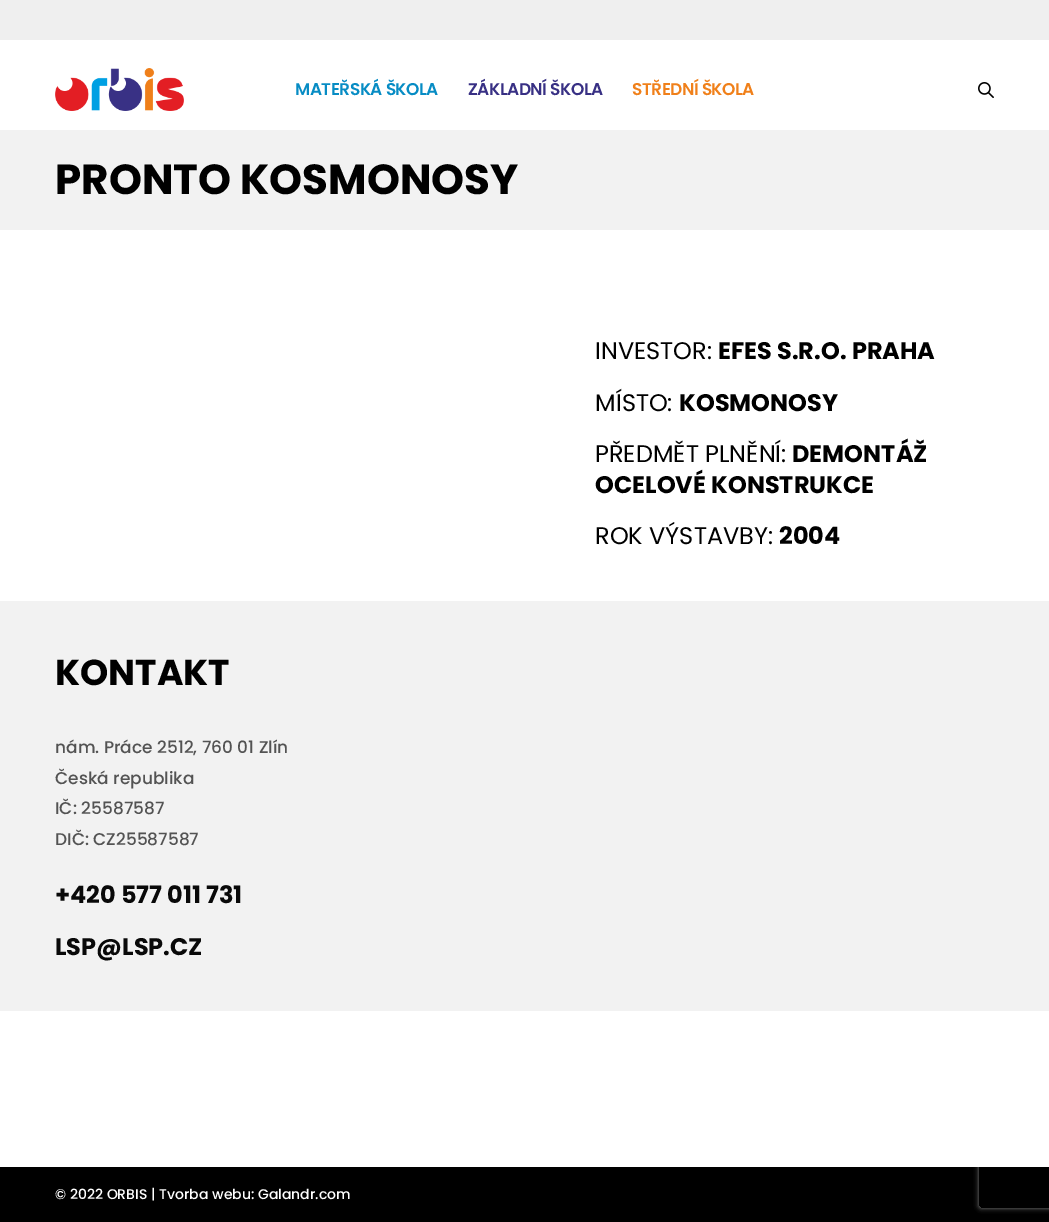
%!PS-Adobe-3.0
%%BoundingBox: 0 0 1049 1222
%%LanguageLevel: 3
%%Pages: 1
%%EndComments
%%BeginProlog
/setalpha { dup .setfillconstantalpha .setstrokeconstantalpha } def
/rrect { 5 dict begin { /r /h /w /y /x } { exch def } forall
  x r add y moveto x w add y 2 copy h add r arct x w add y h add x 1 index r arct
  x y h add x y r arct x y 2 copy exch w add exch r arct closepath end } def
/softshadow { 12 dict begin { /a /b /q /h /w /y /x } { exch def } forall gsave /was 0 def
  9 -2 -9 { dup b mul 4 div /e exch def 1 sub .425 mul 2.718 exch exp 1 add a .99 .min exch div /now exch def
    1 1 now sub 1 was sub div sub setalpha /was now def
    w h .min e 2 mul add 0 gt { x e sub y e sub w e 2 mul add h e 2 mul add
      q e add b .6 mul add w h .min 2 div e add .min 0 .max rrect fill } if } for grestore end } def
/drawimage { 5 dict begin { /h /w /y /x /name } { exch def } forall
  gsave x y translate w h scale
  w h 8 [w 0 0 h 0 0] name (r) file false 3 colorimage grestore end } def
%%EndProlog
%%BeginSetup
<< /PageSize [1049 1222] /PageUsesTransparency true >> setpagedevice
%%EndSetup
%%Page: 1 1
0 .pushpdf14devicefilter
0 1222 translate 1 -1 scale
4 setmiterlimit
0 setgray
0 0 1049 1222 rectfill
0.937 setgray
0 0 1049 40 rectfill
gsave
newpath 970 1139 moveto 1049 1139 lineto 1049 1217 lineto 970 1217 lineto closepath 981 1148 moveto 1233 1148 lineto 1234 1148 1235 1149 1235 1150 curveto 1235 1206 lineto 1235 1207 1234 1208 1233 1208 curveto 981 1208 lineto 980 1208 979 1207 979 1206 curveto 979 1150 lineto 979 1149 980 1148 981 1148 curveto closepath eoclip newpath
0.502 setgray
979 1148 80 60 2 2.5 1 softshadow
grestore
1 setgray
0 40 1049 1127 rectfill
(images/1.raw) 55 68 129 43 drawimage
(images/2.raw) 978 82 16 16 drawimage
0.949 setgray
0 130 1049 100 rectfill
0 601 1049 410 rectfill
/Poppins-SemiBold [17 0 0 -17 0 0] selectfont
0.027 0.549 0.769 setrgbcolor
295 95 moveto -0.5 0 (MATEŘSKÁ ŠKOLA) ashow
0.22 0.188 0.518 setrgbcolor
468 95 moveto -0.5 0 (ZÁKLADNÍ ŠKOLA) ashow
0.941 0.502 0.102 setrgbcolor
632 95 moveto -0.5 0 (STŘEDNÍ ŠKOLA) ashow
/Poppins-Bold [42 0 0 -42 0 0] selectfont
0 setgray
55 194 moveto (PRONTO KOSMONOSY) show
/Poppins-Regular [24 0 0 -24 0 0] selectfont
595 359 moveto (INVESTOR:) show
/Poppins-Bold [24 0 0 -24 0 0] selectfont
718 359 moveto (EFES S.R.O. PRAHA) show
/Poppins-Regular [24 0 0 -24 0 0] selectfont
595 411 moveto (MÍSTO:) show
/Poppins-Bold [24 0 0 -24 0 0] selectfont
679 411 moveto (KOSMONOSY) show
/Poppins-Regular [24 0 0 -24 0 0] selectfont
595 462 moveto (PŘEDMĚT PLNĚNÍ:) show
/Poppins-Bold [24 0 0 -24 0 0] selectfont
792 462 moveto (DEMONTÁŽ) show
595 493 moveto (OCELOVÉ KONSTRUKCE) show
/Poppins-Regular [24 0 0 -24 0 0] selectfont
595 544 moveto (ROK VÝSTAVBY:) show
/Poppins-Bold [24 0 0 -24 0 0] selectfont
779 544 moveto (2004) show
/Poppins-Bold [36 0 0 -36 0 0] selectfont
55 685 moveto (KONTAKT) show
/Poppins-Medium [17 0 0 -17 0 0] selectfont
0.325 setgray
55 753 moveto (nám. Práce 2512, 760 01 Zlín) show
55 784 moveto (Česká republika) show
55 814 moveto (IČ: 25587587) show
55 845 moveto (DIČ: CZ25587587) show
/Poppins-Bold [24 0 0 -24 0 0] selectfont
0.035 setgray
55 903 moveto (+420 577 011 731) show
55 955 moveto (LSP@LSP.CZ) show
/Poppins-Medium [14 0 0 -14 0 0] selectfont
1 setgray
55 1199 moveto (© 2022 ORBIS | Tvorba webu: Galandr.com) show
.poppdf14devicefilter showpage
%%EOF
